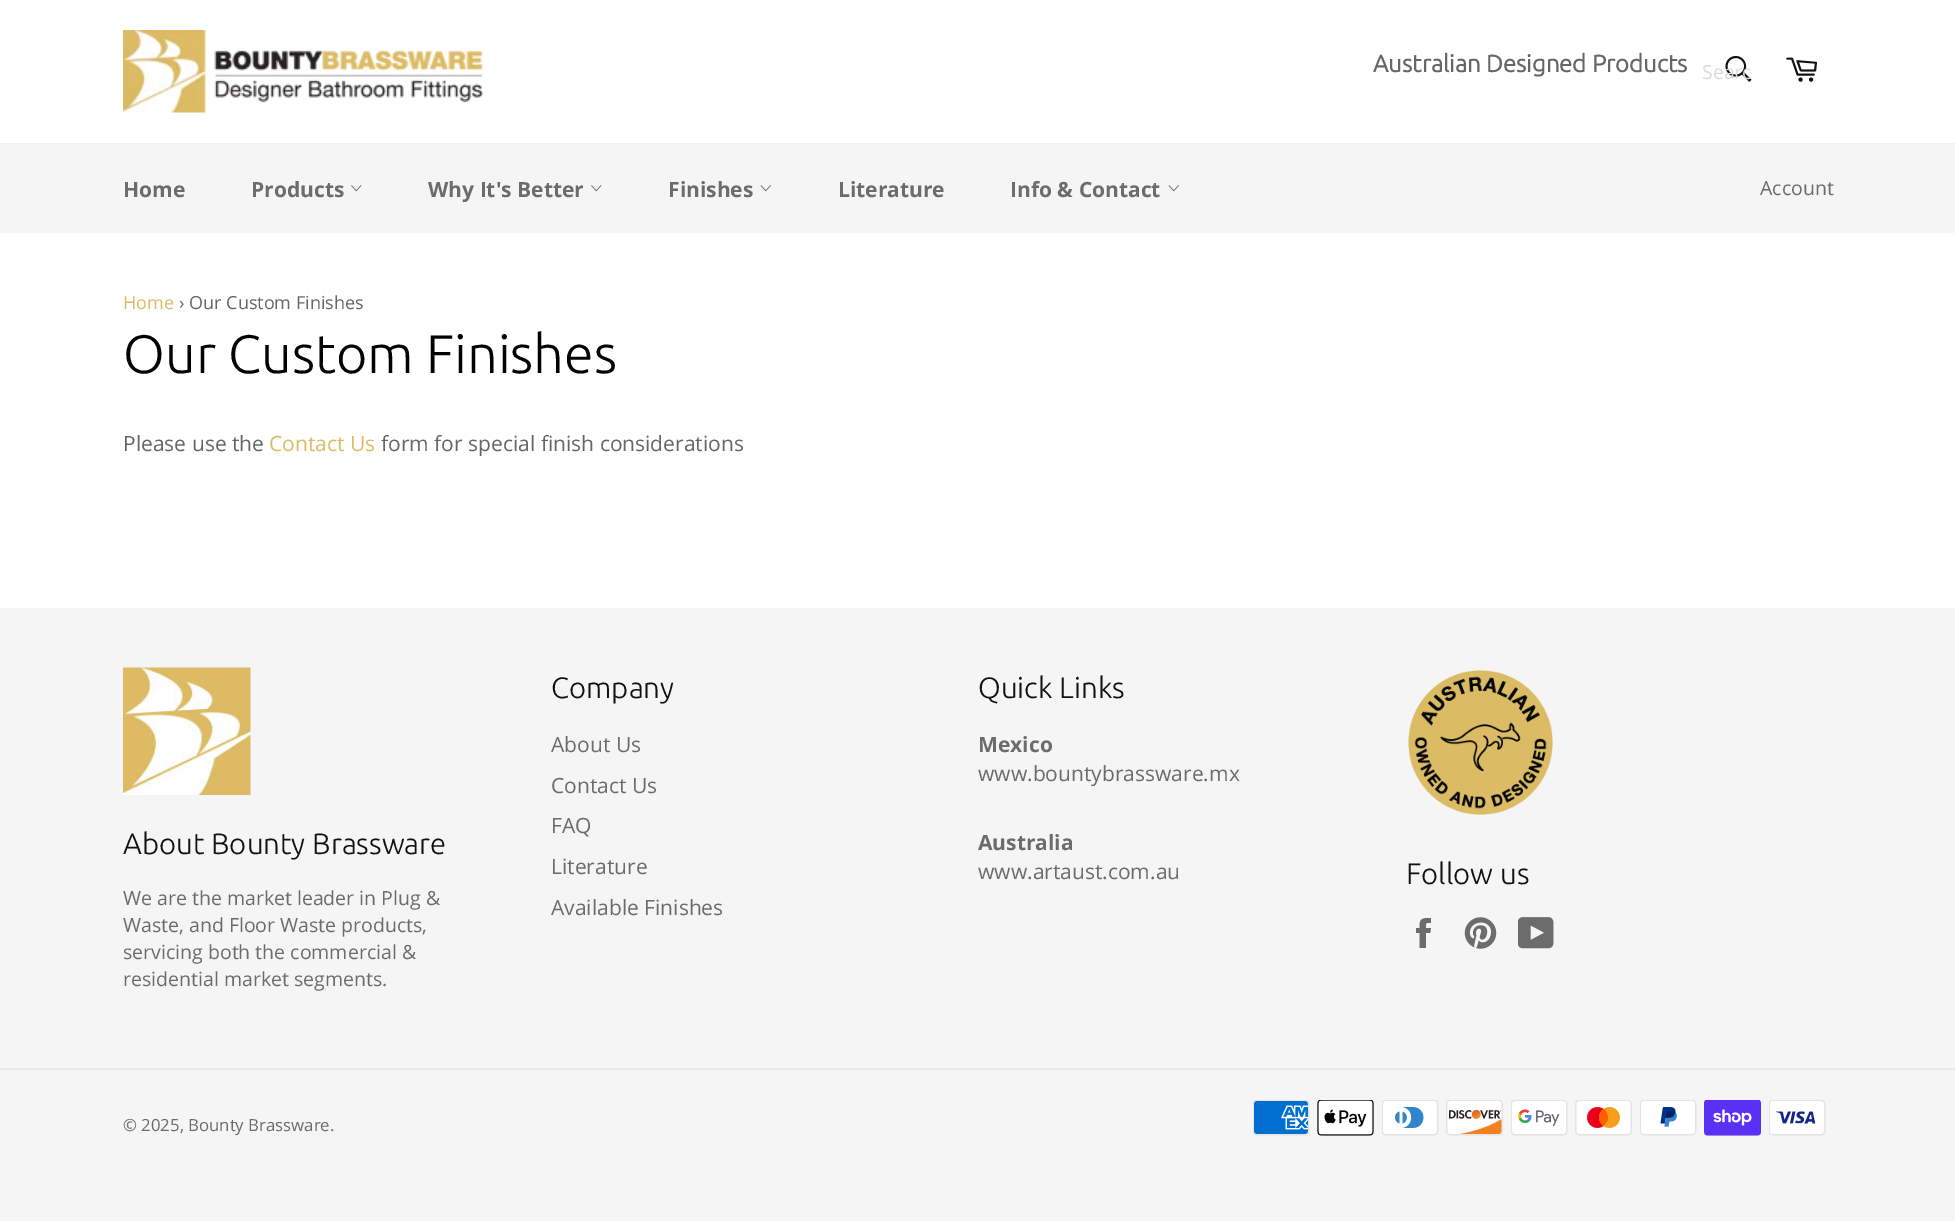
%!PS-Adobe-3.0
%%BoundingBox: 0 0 1955 1221
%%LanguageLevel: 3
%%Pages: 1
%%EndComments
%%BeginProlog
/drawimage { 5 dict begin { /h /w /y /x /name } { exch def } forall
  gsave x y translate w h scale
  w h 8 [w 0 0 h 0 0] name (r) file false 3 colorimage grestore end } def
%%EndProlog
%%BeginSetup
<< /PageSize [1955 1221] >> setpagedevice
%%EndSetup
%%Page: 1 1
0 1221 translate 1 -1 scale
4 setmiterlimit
0.961 setgray
0 0 1955 1221 rectfill
1 setgray
0 0 1955 608 rectfill
(images/1.raw) 123 30 360 83 drawimage
(images/2.raw) 1725 55 27 27 drawimage
(images/3.raw) 1786 57 31 25 drawimage
0.949 setgray
0 143 1955 1 rectfill
0.961 setgray
0 144 1955 89 rectfill
(images/4.raw) 351 185 11 7 drawimage
(images/4.raw) 591 185 11 7 drawimage
(images/5.raw) 760 185 11 7 drawimage
(images/5.raw) 1168 185 11 7 drawimage
(images/6.raw) 123 667 128 128 drawimage
(images/7.raw) 1408 670 145 145 drawimage
(images/8.raw) 1416 918 15 30 drawimage
(images/9.raw) 1464 917 33 32 drawimage
(images/10.raw) 1518 917 36 32 drawimage
0.91 setgray
0 1068 1955 2 rectfill
(images/11.raw) 1253 1100 57 36 drawimage
(images/12.raw) 1317 1100 57 36 drawimage
(images/13.raw) 1382 1100 57 36 drawimage
(images/14.raw) 1446 1100 57 36 drawimage
(images/15.raw) 1511 1100 57 36 drawimage
(images/16.raw) 1575 1100 57 36 drawimage
(images/17.raw) 1640 1100 57 36 drawimage
(images/18.raw) 1704 1100 57 36 drawimage
(images/19.raw) 1769 1100 57 36 drawimage
/Ubuntu-Bold [24 0 0 -24 0 0] selectfont
0.4 setgray
1373 72 moveto (Australian Designed Products) show
gsave
1703 59 48 27 rectclip
/OpenSans-Regular [19.5 0 0 -19.5 0 0] selectfont
0.859 setgray
1702 79 moveto (Searc) show
grestore
/OpenSans-Bold [21 0 0 -21 0 0] selectfont
0.424 setgray
123 197 moveto (Home) show
251 197 moveto (Products) show
428 197 moveto (Why It's Better) show
668 197 moveto (Finishes) show
838 197 moveto (Literature) show
1010 197 moveto (Info & Contact) show
/OpenSans-Regular [19.5 0 0 -19.5 0 0] selectfont
1760 195 moveto (Account) show
/OpenSans-Regular [18 0 0 -18 0 0] selectfont
0.863 0.733 0.396 setrgbcolor
123 309 moveto (Home) show
0.4 setgray
179 309 moveto (› Our Custom Finishes) show
/Ubuntu-Light [54 0 0 -54 0 0] selectfont
0.012 setgray
123 373 moveto (Our Custom Finishes) show
/OpenSans-Regular [21 0 0 -21 0 0] selectfont
0.4 setgray
123 451 moveto (Please use the) show
0.863 0.733 0.396 setrgbcolor
269 451 moveto (Contact Us) show
0.4 setgray
381 451 moveto (form for special finish considerations) show
/Ubuntu-Light [29.4 0 0 -29.4 0 0] selectfont
0.067 setgray
123 854 moveto (About Bounty Brassware) show
/OpenSans-Regular [19.5 0 0 -19.5 0 0] selectfont
0.424 setgray
123 905 moveto (We are the market leader in Plug &) show
123 932 moveto (Waste, and Floor Waste products,) show
123 959 moveto (servicing both the commercial &) show
123 986 moveto (residential market segments.) show
/Ubuntu-Light [29.4 0 0 -29.4 0 0] selectfont
0.067 setgray
551 698 moveto (Company) show
/OpenSans-Regular [21 0 0 -21 0 0] selectfont
0.424 setgray
551 752 moveto (About Us) show
551 793 moveto (Contact Us) show
551 833 moveto (FAQ) show
551 874 moveto (Literature) show
551 915 moveto (Available Finishes) show
/Ubuntu-Light [29.4 0 0 -29.4 0 0] selectfont
0.067 setgray
978 698 moveto (Quick Links) show
/OpenSans-Bold [21 0 0 -21 0 0] selectfont
0.424 setgray
978 752 moveto (Mexico) show
/OpenSans-Regular [21 0 0 -21 0 0] selectfont
978 781 moveto (www.bountybrassware.mx) show
/OpenSans-Bold [21 0 0 -21 0 0] selectfont
978 850 moveto (Australia) show
/OpenSans-Regular [21 0 0 -21 0 0] selectfont
978 879 moveto (www.artaust.com.au) show
/Ubuntu-Light [29.4 0 0 -29.4 0 0] selectfont
0.067 setgray
1406 884 moveto (Follow us) show
/OpenSans-Regular [16.75 0 0 -16.75 0 0] selectfont
0.424 setgray
123 1131 moveto (© 2025, Bounty Brassware.) show
showpage
%%EOF
